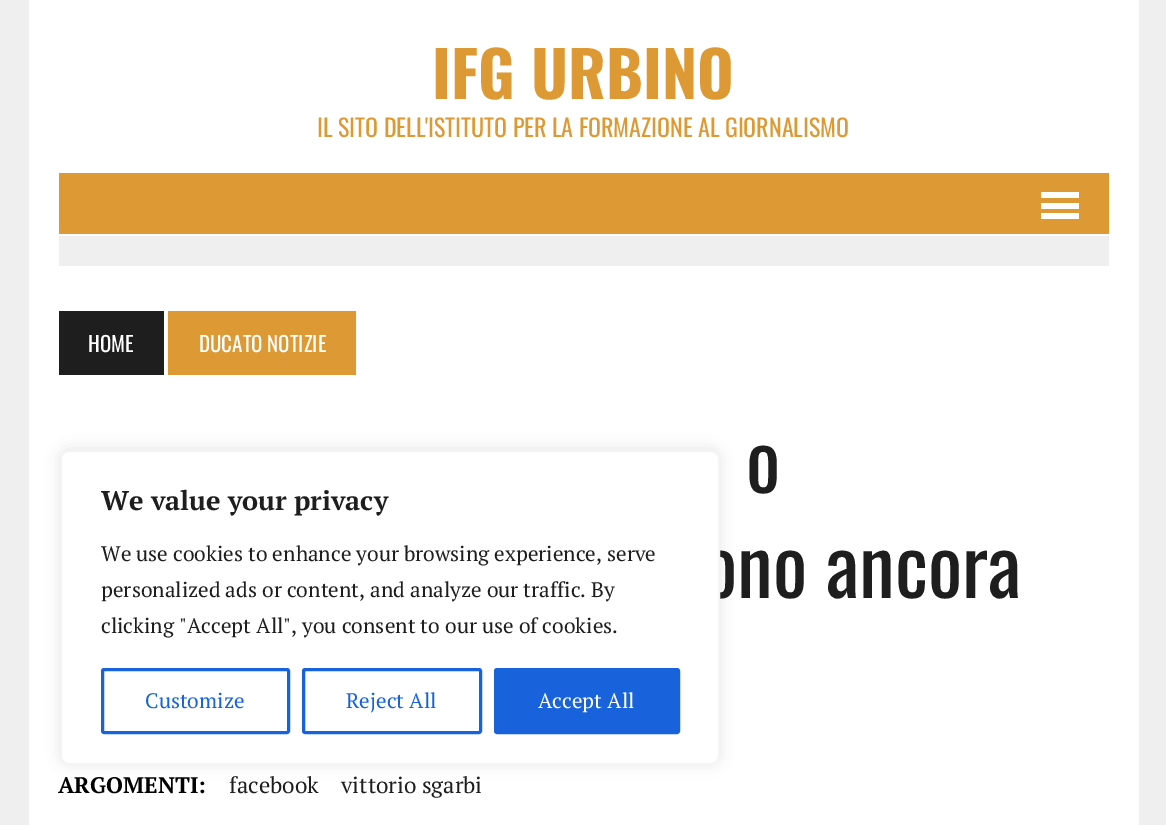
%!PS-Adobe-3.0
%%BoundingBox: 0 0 1166 825
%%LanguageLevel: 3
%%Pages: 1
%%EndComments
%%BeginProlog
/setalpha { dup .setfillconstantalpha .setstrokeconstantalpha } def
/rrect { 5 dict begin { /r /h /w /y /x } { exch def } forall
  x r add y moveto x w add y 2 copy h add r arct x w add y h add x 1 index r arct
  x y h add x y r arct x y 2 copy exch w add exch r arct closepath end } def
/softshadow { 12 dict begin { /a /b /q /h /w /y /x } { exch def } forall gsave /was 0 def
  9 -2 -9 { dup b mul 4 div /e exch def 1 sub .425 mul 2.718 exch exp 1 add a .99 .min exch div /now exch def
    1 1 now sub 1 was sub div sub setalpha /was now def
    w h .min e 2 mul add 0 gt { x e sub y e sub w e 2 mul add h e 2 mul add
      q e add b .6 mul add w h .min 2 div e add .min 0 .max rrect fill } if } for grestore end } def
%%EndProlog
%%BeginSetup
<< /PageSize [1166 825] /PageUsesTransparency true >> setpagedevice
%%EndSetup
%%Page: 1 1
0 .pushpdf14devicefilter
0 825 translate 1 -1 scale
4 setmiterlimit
0.937 setgray
0 0 1166 825 rectfill
1 setgray
29 0 1110 825 rectfill
0.867 0.6 0.2 setrgbcolor
59 173 1050 61 rectfill
1 setgray
1041 192 38 6 rectfill
1041 203 38 6 rectfill
1041 213 38 6 rectfill
0.937 setgray
59 236 1050 30 rectfill
0.122 0.118 0.118 setrgbcolor
59 311 105 64 rectfill
0.867 0.6 0.2 setrgbcolor
168 311 188 64 rectfill
0.675 0.671 0.671 setrgbcolor
60 449 660 315 9 7.5 0.3 softshadow
/Oswald-Bold [63 0 0 -63 0 0] selectfont
0.867 0.6 0.2 setrgbcolor
432 99 moveto (IFG URBINO) show
/Oswald-Regular [24 0 0 -24 0 0] selectfont
317 137 moveto (IL SITO DELL'ISTITUTO PER LA FORMAZIONE AL GIORNALISMO) show
/Oswald-Regular [21 0 0 -21 0 0] selectfont
1 setgray
88 352 moveto (HOME) show
199 352 moveto (DUCATO NOTIZIE) show
/Oswald-Regular [81 0 0 -81 0 0] selectfont
0.122 0.118 0.118 setrgbcolor
746 493 moveto (o) show
703 598 moveto (ono ancora) show
/PTSerif-Bold [22.5 0 0 -22.5 0 0] selectfont
0 setgray
58 793 moveto (ARGOMENTI:) show
/PTSerif-Regular [22.5 0 0 -22.5 0 0] selectfont
0.122 0.118 0.118 setrgbcolor
229 793 moveto (facebook) show
341 793 moveto (vittorio sgarbi) show
1 setgray
61 451 658 313 8 rrect gsave fill grestore
0.957 setgray
2 setlinewidth
stroke
/PTSerif-Bold [27 0 0 -27 0 0] selectfont
0.122 0.118 0.118 setrgbcolor
101 510 moveto (We value your privacy) show
/PTSerif-Regular [21 0 0 -21 0 0] selectfont
101 561 moveto (We use cookies to enhance your browsing experience, serve) show
101 597 moveto (personalized ads or content, and analyze our traffic. By) show
101 633 moveto (clicking "Accept All", you consent to our use of cookies.) show
0.094 0.388 0.863 setrgbcolor
3 setlinewidth
102.5 669.5 186 63 1.5 rrect stroke
145 708 moveto (Customize) show
303.5 669.5 177 63 1.5 rrect stroke
346 708 moveto (Reject All) show
495.5 669.5 183 63 1.5 rrect gsave fill grestore
stroke
1 setgray
538 708 moveto (Accept All) show
.poppdf14devicefilter showpage
%%EOF
